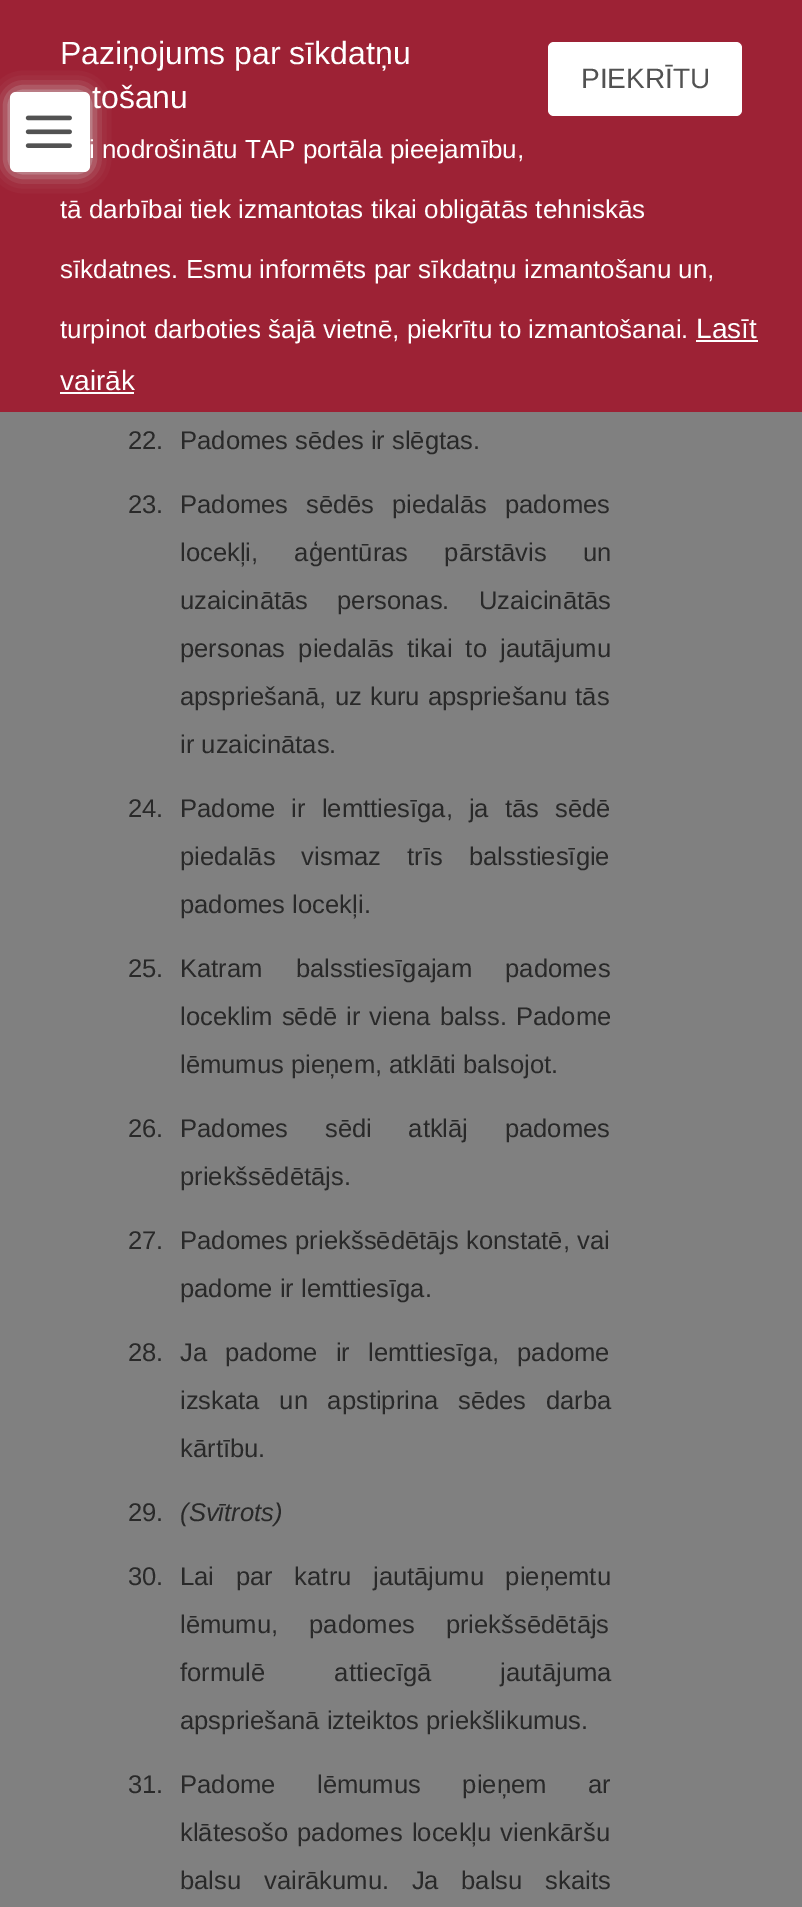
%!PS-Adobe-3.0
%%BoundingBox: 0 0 802 1907
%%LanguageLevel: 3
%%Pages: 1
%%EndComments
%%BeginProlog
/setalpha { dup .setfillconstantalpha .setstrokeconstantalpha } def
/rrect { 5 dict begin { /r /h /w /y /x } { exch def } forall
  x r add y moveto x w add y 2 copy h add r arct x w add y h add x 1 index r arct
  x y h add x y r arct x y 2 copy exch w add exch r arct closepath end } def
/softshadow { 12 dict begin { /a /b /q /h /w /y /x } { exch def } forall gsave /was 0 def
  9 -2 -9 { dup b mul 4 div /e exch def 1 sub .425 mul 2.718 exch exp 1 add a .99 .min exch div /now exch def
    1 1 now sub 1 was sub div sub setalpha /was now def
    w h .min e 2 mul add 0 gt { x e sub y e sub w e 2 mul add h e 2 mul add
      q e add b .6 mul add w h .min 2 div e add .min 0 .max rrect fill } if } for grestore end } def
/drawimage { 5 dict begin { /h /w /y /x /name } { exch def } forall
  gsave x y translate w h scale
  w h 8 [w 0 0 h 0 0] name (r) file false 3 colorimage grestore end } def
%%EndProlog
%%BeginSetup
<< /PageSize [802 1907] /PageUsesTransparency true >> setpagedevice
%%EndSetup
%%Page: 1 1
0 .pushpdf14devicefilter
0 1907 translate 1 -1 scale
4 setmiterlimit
0.502 setgray
0 0 802 1907 rectfill
0.616 0.133 0.208 setrgbcolor
0 0 802 412 rectfill
1 setgray
548 42 194 74 6 rrect fill
696 340 62 2 rectfill
60 392 74 2 rectfill
0.847 setgray
10 92 80 80 8 9.5 1 softshadow
1 setgray
10 92 80 80 6 rrect fill
(images/1.raw) 25 115 47 33 drawimage
/LiberationSans-Regular [32 0 0 -32 0 0] selectfont
60 64 moveto (Paziņojums par sīkdatņu) show
/LiberationSans-Regular [28 0 0 -28 0 0] selectfont
0.322 setgray
581 88 moveto (PIEKRĪTU) show
/LiberationSans-Regular [32 0 0 -32 0 0] selectfont
1 setgray
92 108 moveto (tošanu) show
/LiberationSans-Regular [26 0 0 -26 0 0] selectfont
89 158 moveto (i nodrošinātu TAP portāla pieejamību,) show
60 218 moveto (tā darbībai tiek izmantotas tikai obligātās tehniskās) show
60 278 moveto (sīkdatnes. Esmu informēts par sīkdatņu izmantošanu un,) show
60 338 moveto (turpinot darboties šajā vietnē, piekrītu to izmantošanai.) show
/LiberationSans-Regular [28 0 0 -28 0 0] selectfont
696 338 moveto (Lasīt) show
60 390 moveto (vairāk) show
/LiberationSans-Regular [25.6 0 0 -25.6 0 0] selectfont
0.161 setgray
128 449 moveto (22.) show
180 449 moveto (Padomes sēdes ir slēgtas.) show
128 513 moveto (23.) show
180 513 moveto 10.5 0 32 (Padomes sēdēs piedalās padomes) widthshow
180 561 moveto 29 0 32 (locekļi, aģentūras pārstāvis un) widthshow
180 609 moveto 22 0 32 (uzaicinātās personas. Uzaicinātās) widthshow
180 657 moveto 6 0 32 (personas piedalās tikai to jautājumu) widthshow
180 705 moveto 1 0 32 (apspriešanā, uz kuru apspriešanu tās) widthshow
180 753 moveto (ir uzaicinātas.) show
128 817 moveto (24.) show
180 817 moveto 9 0 32 (Padome ir lemttiesīga, ja tās sēdē) widthshow
180 865 moveto 19 0 32 (piedalās vismaz trīs balsstiesīgie) widthshow
180 913 moveto (padomes locekļi.) show
128 977 moveto (25.) show
180 977 moveto 26 0 32 (Katram balsstiesīgajam padomes) widthshow
180 1025 moveto 2 0 32 (loceklim sēdē ir viena balss. Padome) widthshow
180 1073 moveto (lēmumus pieņem, atklāti balsojot.) show
128 1137 moveto (26.) show
180 1137 moveto 29.5 0 32 (Padomes sēdi atklāj padomes) widthshow
180 1185 moveto (priekšsēdētājs.) show
128 1249 moveto (27.) show
180 1249 moveto (Padomes priekšsēdētājs konstatē, vai) show
180 1297 moveto (padome ir lemttiesīga.) show
128 1361 moveto (28.) show
180 1361 moveto 11 0 32 (Ja padome ir lemttiesīga, padome) widthshow
180 1409 moveto 12.5 0 32 (izskata un apstiprina sēdes darba) widthshow
180 1457 moveto (kārtību.) show
128 1521 moveto (29.) show
/LiberationSans-Italic [25.6 0 0 -25.6 0 0] selectfont
180 1521 moveto (\(Svītrots\)) show
/LiberationSans-Regular [25.6 0 0 -25.6 0 0] selectfont
128 1585 moveto (30.) show
180 1585 moveto 14.5 0 32 (Lai par katru jautājumu pieņemtu) widthshow
180 1633 moveto 24 0 32 (lēmumu, padomes priekšsēdētājs) widthshow
180 1681 moveto 62 0 32 (formulē attiecīgā jautājuma) widthshow
180 1729 moveto (apspriešanā izteiktos priekšlikumus.) show
128 1793 moveto (31.) show
180 1793 moveto 34.5 0 32 (Padome lēmumus pieņem ar) widthshow
180 1841 moveto 2 0 32 (klātesošo padomes locekļu vienkāršu) widthshow
180 1889 moveto 15.5 0 32 (balsu vairākumu. Ja balsu skaits) widthshow
.poppdf14devicefilter showpage
%%EOF
